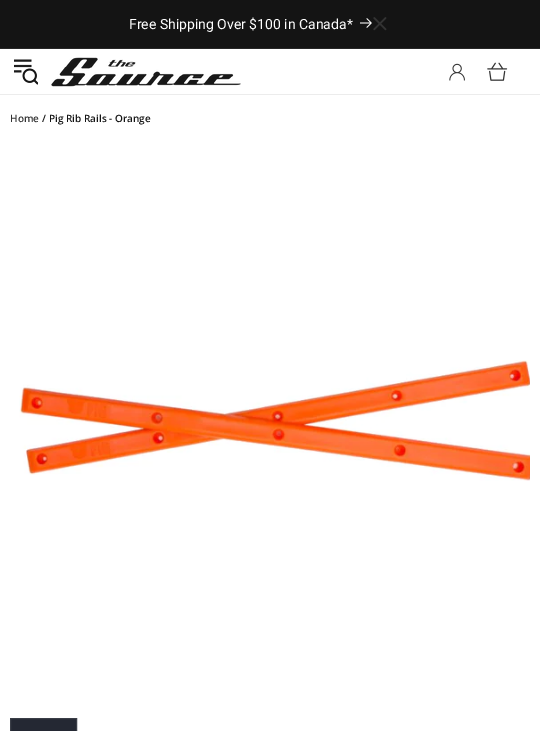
%!PS-Adobe-3.0
%%BoundingBox: 0 0 540 731
%%LanguageLevel: 3
%%Pages: 1
%%EndComments
%%BeginProlog
/drawimage { 5 dict begin { /h /w /y /x /name } { exch def } forall
  gsave x y translate w h scale
  w h 8 [w 0 0 h 0 0] name (r) file false 3 colorimage grestore end } def
%%EndProlog
%%BeginSetup
<< /PageSize [540 731] >> setpagedevice
%%EndSetup
%%Page: 1 1
0 731 translate 1 -1 scale
4 setmiterlimit
1 setgray
0 0 540 731 rectfill
0.078 setgray
0 0 540 48 rectfill
0.153 setgray
0 48 540 1 rectfill
(images/1.raw) 360 18 12 10 drawimage
(images/2.raw) 373 17 14 14 drawimage
0.925 setgray
0 94 540 1 rectfill
(images/3.raw) 14 59 24 26 drawimage
(images/4.raw) 51 57 190 30 drawimage
(images/5.raw) 449 63 16 18 drawimage
(images/6.raw) 487 62 21 19 drawimage
(images/7.raw) 19 360 511 121 drawimage
0.141 0.157 0.2 setrgbcolor
newpath 10.5 718.5 moveto 76.5 718.5 lineto 76.5 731.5 lineto 10.5 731.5 lineto closepath gsave fill grestore
0.227 0.243 0.278 setrgbcolor
stroke
/Roboto-Regular [14 0 0 -14 0 0] selectfont
1 setgray
129 29 moveto (Free Shipping Over $100 in Canada*) show
/OpenSans-SemiBold [10 0 0 -10 0 0] selectfont
0.2 setgray
10 122 moveto (Home) show
0.078 setgray
42 122 moveto (/) show
49 122 moveto (Pig Rib Rails - Orange) show
showpage
%%EOF
